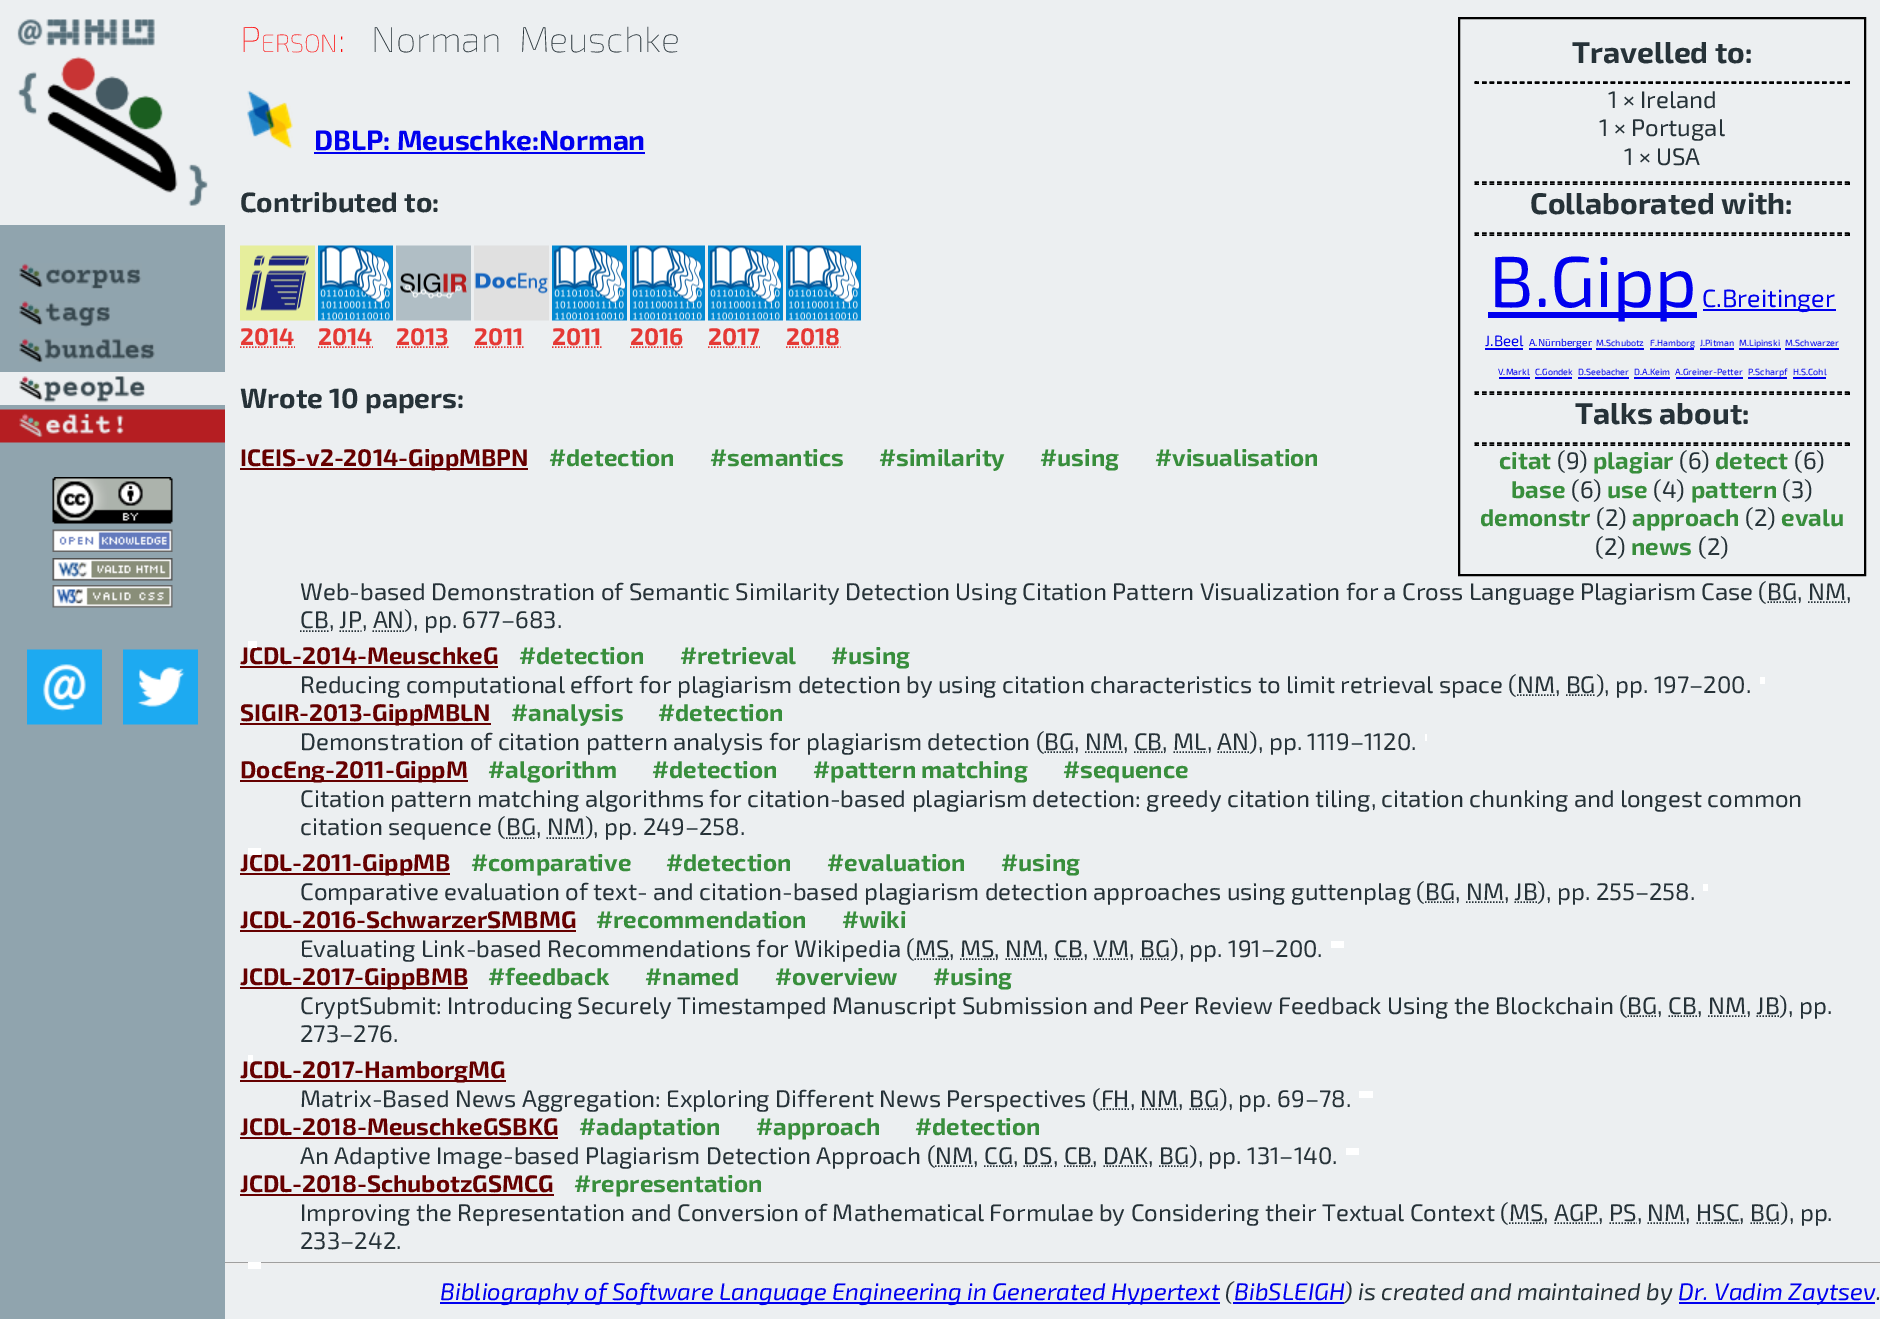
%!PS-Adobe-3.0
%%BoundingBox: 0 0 1880 1319
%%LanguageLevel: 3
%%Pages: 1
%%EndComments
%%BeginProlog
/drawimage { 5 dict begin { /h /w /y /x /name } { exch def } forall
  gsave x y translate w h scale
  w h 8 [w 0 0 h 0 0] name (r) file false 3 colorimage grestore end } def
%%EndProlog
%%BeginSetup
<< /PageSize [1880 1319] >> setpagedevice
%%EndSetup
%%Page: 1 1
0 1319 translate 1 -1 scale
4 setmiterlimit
0.925 0.937 0.945 setrgbcolor
0 0 1880 1319 rectfill
0.565 0.643 0.682 setrgbcolor
0 225 225 1094 rectfill
(images/1.raw) 0 0 225 225 drawimage
(images/2.raw) 19 263 123 26 drawimage
(images/3.raw) 19 301 91 27 drawimage
(images/4.raw) 19 338 136 25 drawimage
(images/5.raw) 0 372 225 33 drawimage
(images/6.raw) 0 409 225 34 drawimage
(images/7.raw) 52 477 121 47 drawimage
(images/8.raw) 52 529 121 23 drawimage
(images/9.raw) 52 558 121 23 drawimage
(images/10.raw) 52 585 121 23 drawimage
(images/11.raw) 27 649 75 76 drawimage
(images/12.raw) 123 649 75 76 drawimage
0 setgray
2 setlinewidth
1459 18 406 557 rectstroke
1.5 setlinewidth
[4.5 3.06] 0 setdash
newpath 1474.5 82 moveto 1849.5 82 lineto stroke
1848 81 2 3 rectfill
newpath 1474.5 83 moveto 1849.5 83 lineto stroke
1475 81 2 3 rectfill
newpath 1474.5 182 moveto 1849.5 182 lineto stroke
1848 182 2 3 rectfill
newpath 1474.5 184 moveto 1849.5 184 lineto stroke
1475 182 2 3 rectfill
newpath 1474.5 233 moveto 1849.5 233 lineto stroke
1848 233 2 3 rectfill
newpath 1474.5 235 moveto 1849.5 235 lineto stroke
1475 233 2 3 rectfill
0 0 0.933 setrgbcolor
1488 312 209 6 rectfill
1703 309 133 2 rectfill
1485 348 38 2 rectfill
1529 348 63 2 rectfill
1596 348 48 2 rectfill
1650 348 44 2 rectfill
1700 348 34 2 rectfill
1739 348 42 2 rectfill
1785 348 54 2 rectfill
1499 377 31 2 rectfill
1535 377 37 2 rectfill
1578 377 51 2 rectfill
1634 377 36 2 rectfill
1676 377 67 2 rectfill
1748 377 39 2 rectfill
1793 377 33 2 rectfill
0 setgray
newpath 1474.5 392 moveto 1849.5 392 lineto stroke
1848 392 2 3 rectfill
newpath 1474.5 394 moveto 1849.5 394 lineto stroke
1475 392 2 3 rectfill
newpath 1474.5 443 moveto 1849.5 443 lineto stroke
1848 443 2 3 rectfill
newpath 1474.5 445 moveto 1849.5 445 lineto stroke
1475 443 2 3 rectfill
(images/13.raw) 247 90 46 59 drawimage
0 0 0.933 setrgbcolor
314 152 331 2 rectfill
(images/14.raw) 240 245 75 76 drawimage
0.898 0.224 0.208 setrgbcolor
[1.5 1.5] 0 setdash
newpath 240 347 moveto 295 347 lineto stroke
(images/15.raw) 318 245 75 76 drawimage
newpath 318 347 moveto 373 347 lineto stroke
(images/16.raw) 396 245 75 76 drawimage
newpath 396 347 moveto 449 347 lineto stroke
(images/17.raw) 474 245 75 76 drawimage
newpath 474 347 moveto 524 347 lineto stroke
(images/15.raw) 552 245 75 76 drawimage
newpath 552 347 moveto 602 347 lineto stroke
(images/15.raw) 630 245 75 76 drawimage
newpath 630 347 moveto 683.5 347 lineto stroke
(images/15.raw) 708 245 75 76 drawimage
newpath 708 347 moveto 760 347 lineto stroke
(images/15.raw) 786 245 75 76 drawimage
newpath 786 347 moveto 840.5 347 lineto stroke
0.4 0 0 setrgbcolor
240 468 288 2 rectfill
0.149 0.196 0.22 setrgbcolor
newpath 1767.5 602 moveto 1797 602 lineto stroke
newpath 1808 602 moveto 1846 602 lineto stroke
newpath 300 631 moveto 328.5 631 lineto stroke
newpath 339.5 631 moveto 361.5 631 lineto stroke
newpath 372.5 631 moveto 404.5 631 lineto stroke
0.4 0 0 setrgbcolor
240 666 258 2 rectfill
0.149 0.196 0.22 setrgbcolor
newpath 1517 695 moveto 1555 695 lineto stroke
newpath 1566 695 moveto 1596 695 lineto stroke
1 setgray
1760 677 5 7 rectfill
0.4 0 0 setrgbcolor
240 723 251 2 rectfill
0.149 0.196 0.22 setrgbcolor
newpath 1044.5 752 moveto 1074.5 752 lineto stroke
newpath 1085 752 moveto 1123 752 lineto stroke
newpath 1134 752 moveto 1162.5 752 lineto stroke
newpath 1173.5 752 moveto 1207 752 lineto stroke
newpath 1217.5 752 moveto 1249.5 752 lineto stroke
1 setgray
1425 734 2 7 rectfill
0.4 0 0 setrgbcolor
240 780 228 2 rectfill
0.149 0.196 0.22 setrgbcolor
newpath 506 838 moveto 536 838 lineto stroke
newpath 546.5 838 moveto 584.5 838 lineto stroke
0.4 0 0 setrgbcolor
240 873 210 2 rectfill
0.149 0.196 0.22 setrgbcolor
newpath 1425 902 moveto 1455 902 lineto stroke
newpath 1466 902 moveto 1504 902 lineto stroke
newpath 1514.5 902 moveto 1537.5 902 lineto stroke
1 setgray
1703 884 5 7 rectfill
0.4 0 0 setrgbcolor
240 930 336 2 rectfill
0.149 0.196 0.22 setrgbcolor
newpath 914.5 959 moveto 949.5 959 lineto stroke
newpath 960 959 moveto 994.5 959 lineto stroke
newpath 1005.5 959 moveto 1043.5 959 lineto stroke
newpath 1054 959 moveto 1083 959 lineto stroke
newpath 1093.5 959 moveto 1129.5 959 lineto stroke
newpath 1140 959 moveto 1170 959 lineto stroke
1 setgray
1331 941 13 7 rectfill
0.4 0 0 setrgbcolor
240 987 228 2 rectfill
0.149 0.196 0.22 setrgbcolor
newpath 1627.5 1016 moveto 1657.5 1016 lineto stroke
newpath 1668.5 1016 moveto 1697 1016 lineto stroke
newpath 1708 1016 moveto 1746 1016 lineto stroke
newpath 1756.5 1016 moveto 1779.5 1016 lineto stroke
0.4 0 0 setrgbcolor
240 1080 266 2 rectfill
0.149 0.196 0.22 setrgbcolor
newpath 1100.5 1109 moveto 1129.5 1109 lineto stroke
newpath 1140.5 1109 moveto 1178.5 1109 lineto stroke
newpath 1189.5 1109 moveto 1219 1109 lineto stroke
1 setgray
1359 1091 14 7 rectfill
0.4 0 0 setrgbcolor
240 1137 318 2 rectfill
0.149 0.196 0.22 setrgbcolor
newpath 935 1166 moveto 973 1166 lineto stroke
newpath 984 1166 moveto 1013 1166 lineto stroke
newpath 1023.5 1166 moveto 1053 1166 lineto stroke
newpath 1064 1166 moveto 1092.5 1166 lineto stroke
newpath 1103.5 1166 moveto 1148.5 1166 lineto stroke
newpath 1159 1166 moveto 1189 1166 lineto stroke
1 setgray
1346 1148 13 7 rectfill
0.4 0 0 setrgbcolor
240 1194 314 2 rectfill
0.149 0.196 0.22 setrgbcolor
newpath 1509 1223 moveto 1543.5 1223 lineto stroke
newpath 1554.5 1223 moveto 1598.5 1223 lineto stroke
newpath 1609.5 1223 moveto 1637 1223 lineto stroke
newpath 1647.5 1223 moveto 1685.5 1223 lineto stroke
newpath 1696.5 1223 moveto 1739.5 1223 lineto stroke
newpath 1750.5 1223 moveto 1780.5 1223 lineto stroke
0.624 setgray
225 1262 1655 1 rectfill
0.933 setgray
225 1263 1655 2 rectfill
1 setgray
248 1262 13 7 rectfill
0 0 0.933 setrgbcolor
440 1302 780 2 rectfill
1679 1302 196 2 rectfill
/Exo2-Thin [36 0 0 -36 0 0] selectfont
1 0 0 setrgbcolor
240 52 moveto (P) show
/Exo2-Thin [25 0 0 -25 0 0] selectfont
261 52 moveto (ERSON) show
/Exo2-Thin [36 0 0 -36 0 0] selectfont
338 52 moveto (:) show
0.149 0.196 0.22 setrgbcolor
371 52 moveto 9 0 32 (Norman Meuschke) widthshow
/Exo2-Bold [30 0 0 -30 0 0] selectfont
1572 63 moveto (Travelled to:) show
/Exo2-Regular [24 0 0 -24 0 0] selectfont
1608 108 moveto (1 × Ireland) show
1599 136 moveto (1 × Portugal) show
1624 165 moveto (1 × USA) show
/Exo2-Bold [30 0 0 -30 0 0] selectfont
1530 214 moveto (Collaborated with:) show
/Exo2-Regular [72 0 0 -72 0 0] selectfont
0 0 0.933 setrgbcolor
1489 307 moveto (B.Gipp) show
/Exo2-Regular [25 0 0 -25 0 0] selectfont
1702 307 moveto (C.Breitinger) show
/Exo2-Regular [15 0 0 -15 0 0] selectfont
1485 346 moveto (J.Beel) show
/Exo2-Regular [10.25 0 0 -10.25 0 0] selectfont
1529 346 moveto (A.Nürnberger) show
/Exo2-Regular [9 0 0 -9 0 0] selectfont
1596 346 moveto (M.Schubotz) show
1650 346 moveto (F.Hamborg) show
1700 346 moveto (J.Pitman) show
1739 346 moveto (M.Lipinski) show
1785 346 moveto (M.Schwarzer) show
1498 375 moveto (V.Markl) show
1535 375 moveto (C.Gondek) show
1578 375 moveto (D.Seebacher) show
1634 375 moveto (D.A.Keim) show
1675 375 moveto (A.Greiner-Petter) show
1748 375 moveto (P.Scharpf) show
1793 375 moveto (H.S.Cohl) show
/Exo2-Bold [30 0 0 -30 0 0] selectfont
0.149 0.196 0.22 setrgbcolor
1575 424 moveto (Talks about:) show
/Exo2-Bold [24 0 0 -24 0 0] selectfont
0.22 0.557 0.235 setrgbcolor
1499 469 moveto (citat) show
/Exo2-Regular [24 0 0 -24 0 0] selectfont
0.149 0.196 0.22 setrgbcolor
1557 469 moveto (\(9\)) show
/Exo2-Bold [24 0 0 -24 0 0] selectfont
0.22 0.557 0.235 setrgbcolor
1593 469 moveto (plagiar) show
/Exo2-Regular [24 0 0 -24 0 0] selectfont
0.149 0.196 0.22 setrgbcolor
1679 469 moveto (\(6\)) show
/Exo2-Bold [24 0 0 -24 0 0] selectfont
0.22 0.557 0.235 setrgbcolor
1715 469 moveto (detect) show
/Exo2-Regular [24 0 0 -24 0 0] selectfont
0.149 0.196 0.22 setrgbcolor
1794 469 moveto (\(6\)) show
/Exo2-Bold [24 0 0 -24 0 0] selectfont
0.22 0.557 0.235 setrgbcolor
1511 498 moveto (base) show
/Exo2-Regular [24 0 0 -24 0 0] selectfont
0.149 0.196 0.22 setrgbcolor
1571 498 moveto (\(6\)) show
/Exo2-Bold [24 0 0 -24 0 0] selectfont
0.22 0.557 0.235 setrgbcolor
1607 498 moveto (use) show
/Exo2-Regular [24 0 0 -24 0 0] selectfont
0.149 0.196 0.22 setrgbcolor
1653 498 moveto (\(4\)) show
/Exo2-Bold [24 0 0 -24 0 0] selectfont
0.22 0.557 0.235 setrgbcolor
1691 498 moveto (pattern) show
/Exo2-Regular [24 0 0 -24 0 0] selectfont
0.149 0.196 0.22 setrgbcolor
1782 498 moveto (\(3\)) show
/Exo2-Bold [24 0 0 -24 0 0] selectfont
0.22 0.557 0.235 setrgbcolor
1480 526 moveto (demonstr) show
/Exo2-Regular [24 0 0 -24 0 0] selectfont
0.149 0.196 0.22 setrgbcolor
1596 526 moveto (\(2\)) show
/Exo2-Bold [24 0 0 -24 0 0] selectfont
0.22 0.557 0.235 setrgbcolor
1632 526 moveto (approach) show
/Exo2-Regular [24 0 0 -24 0 0] selectfont
0.149 0.196 0.22 setrgbcolor
1745 526 moveto (\(2\)) show
/Exo2-Bold [24 0 0 -24 0 0] selectfont
0.22 0.557 0.235 setrgbcolor
1781 526 moveto (evalu) show
/Exo2-Regular [24 0 0 -24 0 0] selectfont
0.149 0.196 0.22 setrgbcolor
1595 555 moveto (\(2\)) show
/Exo2-Bold [24 0 0 -24 0 0] selectfont
0.22 0.557 0.235 setrgbcolor
1631 555 moveto (news) show
/Exo2-Regular [24 0 0 -24 0 0] selectfont
0.149 0.196 0.22 setrgbcolor
1698 555 moveto (\(2\)) show
/Exo2-Bold [28 0 0 -28 0 0] selectfont
0 0 0.933 setrgbcolor
314 150 moveto (DBLP: Meuschke:Norman) show
0.149 0.196 0.22 setrgbcolor
240 212 moveto (Contributed to:) show
/Exo2-Bold [24 0 0 -24 0 0] selectfont
0.898 0.224 0.208 setrgbcolor
240 345 moveto (2014) show
318 345 moveto (2014) show
396 345 moveto (2013) show
474 345 moveto (2011) show
552 345 moveto (2011) show
630 345 moveto (2016) show
708 345 moveto (2017) show
786 345 moveto (2018) show
/Exo2-Bold [28 0 0 -28 0 0] selectfont
0.149 0.196 0.22 setrgbcolor
240 408 moveto (Wrote 10 papers:) show
/Exo2-Bold [24 0 0 -24 0 0] selectfont
0.4 0 0 setrgbcolor
240 466 moveto (ICEIS-v2-2014-GippMBPN) show
0.22 0.557 0.235 setrgbcolor
549 466 moveto (#detection) show
710 466 moveto (#semantics) show
879 466 moveto (#similarity) show
1040 466 moveto (#using) show
1155 466 moveto (#visualisation) show
/Exo2-Regular [24 0 0 -24 0 0] selectfont
0.149 0.196 0.22 setrgbcolor
300 600 moveto (Web-based Demonstration of Semantic Similarity Detection Using Citation Pattern Visualization for a Cross Language Plagiarism Case \(BG, NM,) show
300 628 moveto (CB, JP, AN\), pp. 677–683.) show
/Exo2-Bold [24 0 0 -24 0 0] selectfont
0.4 0 0 setrgbcolor
240 664 moveto (JCDL-2014-MeuschkeG) show
1 setgray
248 641 9 7 rectfill
0.22 0.557 0.235 setrgbcolor
519 664 moveto (#detection) show
680 664 moveto (#retrieval) show
831 664 moveto (#using) show
/Exo2-Regular [24 0 0 -24 0 0] selectfont
0.149 0.196 0.22 setrgbcolor
300 693 moveto (Reducing computational effort for plagiarism detection by using citation characteristics to limit retrieval space \(NM, BG\), pp. 197–200.) show
/Exo2-Bold [24 0 0 -24 0 0] selectfont
0.4 0 0 setrgbcolor
240 721 moveto (SIGIR-2013-GippMBLN) show
0.22 0.557 0.235 setrgbcolor
511 721 moveto (#analysis) show
658 721 moveto (#detection) show
/Exo2-Regular [24 0 0 -24 0 0] selectfont
0.149 0.196 0.22 setrgbcolor
300 750 moveto (Demonstration of citation pattern analysis for plagiarism detection \(BG, NM, CB, ML, AN\), pp. 1119–1120.) show
/Exo2-Bold [24 0 0 -24 0 0] selectfont
0.4 0 0 setrgbcolor
240 778 moveto (DocEng-2011-GippM) show
0.22 0.557 0.235 setrgbcolor
488 778 moveto (#algorithm) show
652 778 moveto (#detection) show
813 778 moveto (#pattern matching) show
1063 778 moveto (#sequence) show
/Exo2-Regular [24 0 0 -24 0 0] selectfont
0.149 0.196 0.22 setrgbcolor
300 807 moveto (Citation pattern matching algorithms for citation-based plagiarism detection: greedy citation tiling, citation chunking and longest common) show
300 835 moveto (citation sequence \(BG, NM\), pp. 249–258.) show
/Exo2-Bold [24 0 0 -24 0 0] selectfont
0.4 0 0 setrgbcolor
240 871 moveto (JCDL-2011-GippMB) show
1 setgray
248 848 13 7 rectfill
0.22 0.557 0.235 setrgbcolor
471 871 moveto (#comparative) show
666 871 moveto (#detection) show
827 871 moveto (#evaluation) show
1001 871 moveto (#using) show
/Exo2-Regular [24 0 0 -24 0 0] selectfont
0.149 0.196 0.22 setrgbcolor
300 900 moveto (Comparative evaluation of text- and citation-based plagiarism detection approaches using guttenplag \(BG, NM, JB\), pp. 255–258.) show
/Exo2-Bold [24 0 0 -24 0 0] selectfont
0.4 0 0 setrgbcolor
240 928 moveto (JCDL-2016-SchwarzerSMBMG) show
0.22 0.557 0.235 setrgbcolor
596 928 moveto (#recommendation) show
842 928 moveto (#wiki) show
/Exo2-Regular [24 0 0 -24 0 0] selectfont
0.149 0.196 0.22 setrgbcolor
300 957 moveto (Evaluating Link-based Recommendations for Wikipedia \(MS, MS, NM, CB, VM, BG\), pp. 191–200.) show
/Exo2-Bold [24 0 0 -24 0 0] selectfont
0.4 0 0 setrgbcolor
240 985 moveto (JCDL-2017-GippBMB) show
0.22 0.557 0.235 setrgbcolor
488 985 moveto (#feedback) show
645 985 moveto (#named) show
775 985 moveto (#overview) show
933 985 moveto (#using) show
/Exo2-Regular [24 0 0 -24 0 0] selectfont
0.149 0.196 0.22 setrgbcolor
300 1014 moveto (CryptSubmit: Introducing Securely Timestamped Manuscript Submission and Peer Review Feedback Using the Blockchain \(BG, CB, NM, JB\), pp.) show
300 1042 moveto (273–276.) show
/Exo2-Bold [24 0 0 -24 0 0] selectfont
0.4 0 0 setrgbcolor
240 1078 moveto (JCDL-2017-HamborgMG) show
1 setgray
248 1055 5 7 rectfill
/Exo2-Regular [24 0 0 -24 0 0] selectfont
0.149 0.196 0.22 setrgbcolor
300 1107 moveto (Matrix-Based News Aggregation: Exploring Different News Perspectives \(FH, NM, BG\), pp. 69–78.) show
/Exo2-Bold [24 0 0 -24 0 0] selectfont
0.4 0 0 setrgbcolor
240 1135 moveto (JCDL-2018-MeuschkeGSBKG) show
0.22 0.557 0.235 setrgbcolor
579 1135 moveto (#adaptation) show
756 1135 moveto (#approach) show
915 1135 moveto (#detection) show
/Exo2-Regular [24 0 0 -24 0 0] selectfont
0.149 0.196 0.22 setrgbcolor
300 1164 moveto (An Adaptive Image-based Plagiarism Detection Approach \(NM, CG, DS, CB, DAK, BG\), pp. 131–140.) show
/Exo2-Bold [24 0 0 -24 0 0] selectfont
0.4 0 0 setrgbcolor
240 1192 moveto (JCDL-2018-SchubotzGSMCG) show
0.22 0.557 0.235 setrgbcolor
574 1192 moveto (#representation) show
/Exo2-Regular [24 0 0 -24 0 0] selectfont
0.149 0.196 0.22 setrgbcolor
300 1221 moveto (Improving the Representation and Conversion of Mathematical Formulae by Considering their Textual Context \(MS, AGP, PS, NM, HSC, BG\), pp.) show
300 1249 moveto (233–242.) show
/Exo2-Italic [24 0 0 -24 0 0] selectfont
0 0 0.933 setrgbcolor
440 1300 moveto (Bibliography of Software Language Engineering in Generated Hypertext) show
0.149 0.196 0.22 setrgbcolor
1225 1300 moveto (\() show
0 0 0.933 setrgbcolor
1234 1300 moveto (BibSLEIGH) show
1233 1302 111 2 rectfill
0.149 0.196 0.22 setrgbcolor
1344 1300 moveto (\) is created and maintained by) show
0 0 0.933 setrgbcolor
1678 1300 moveto (Dr. Vadim Zaytsev) show
0.149 0.196 0.22 setrgbcolor
1876 1300 moveto (.) show
showpage
%%EOF
